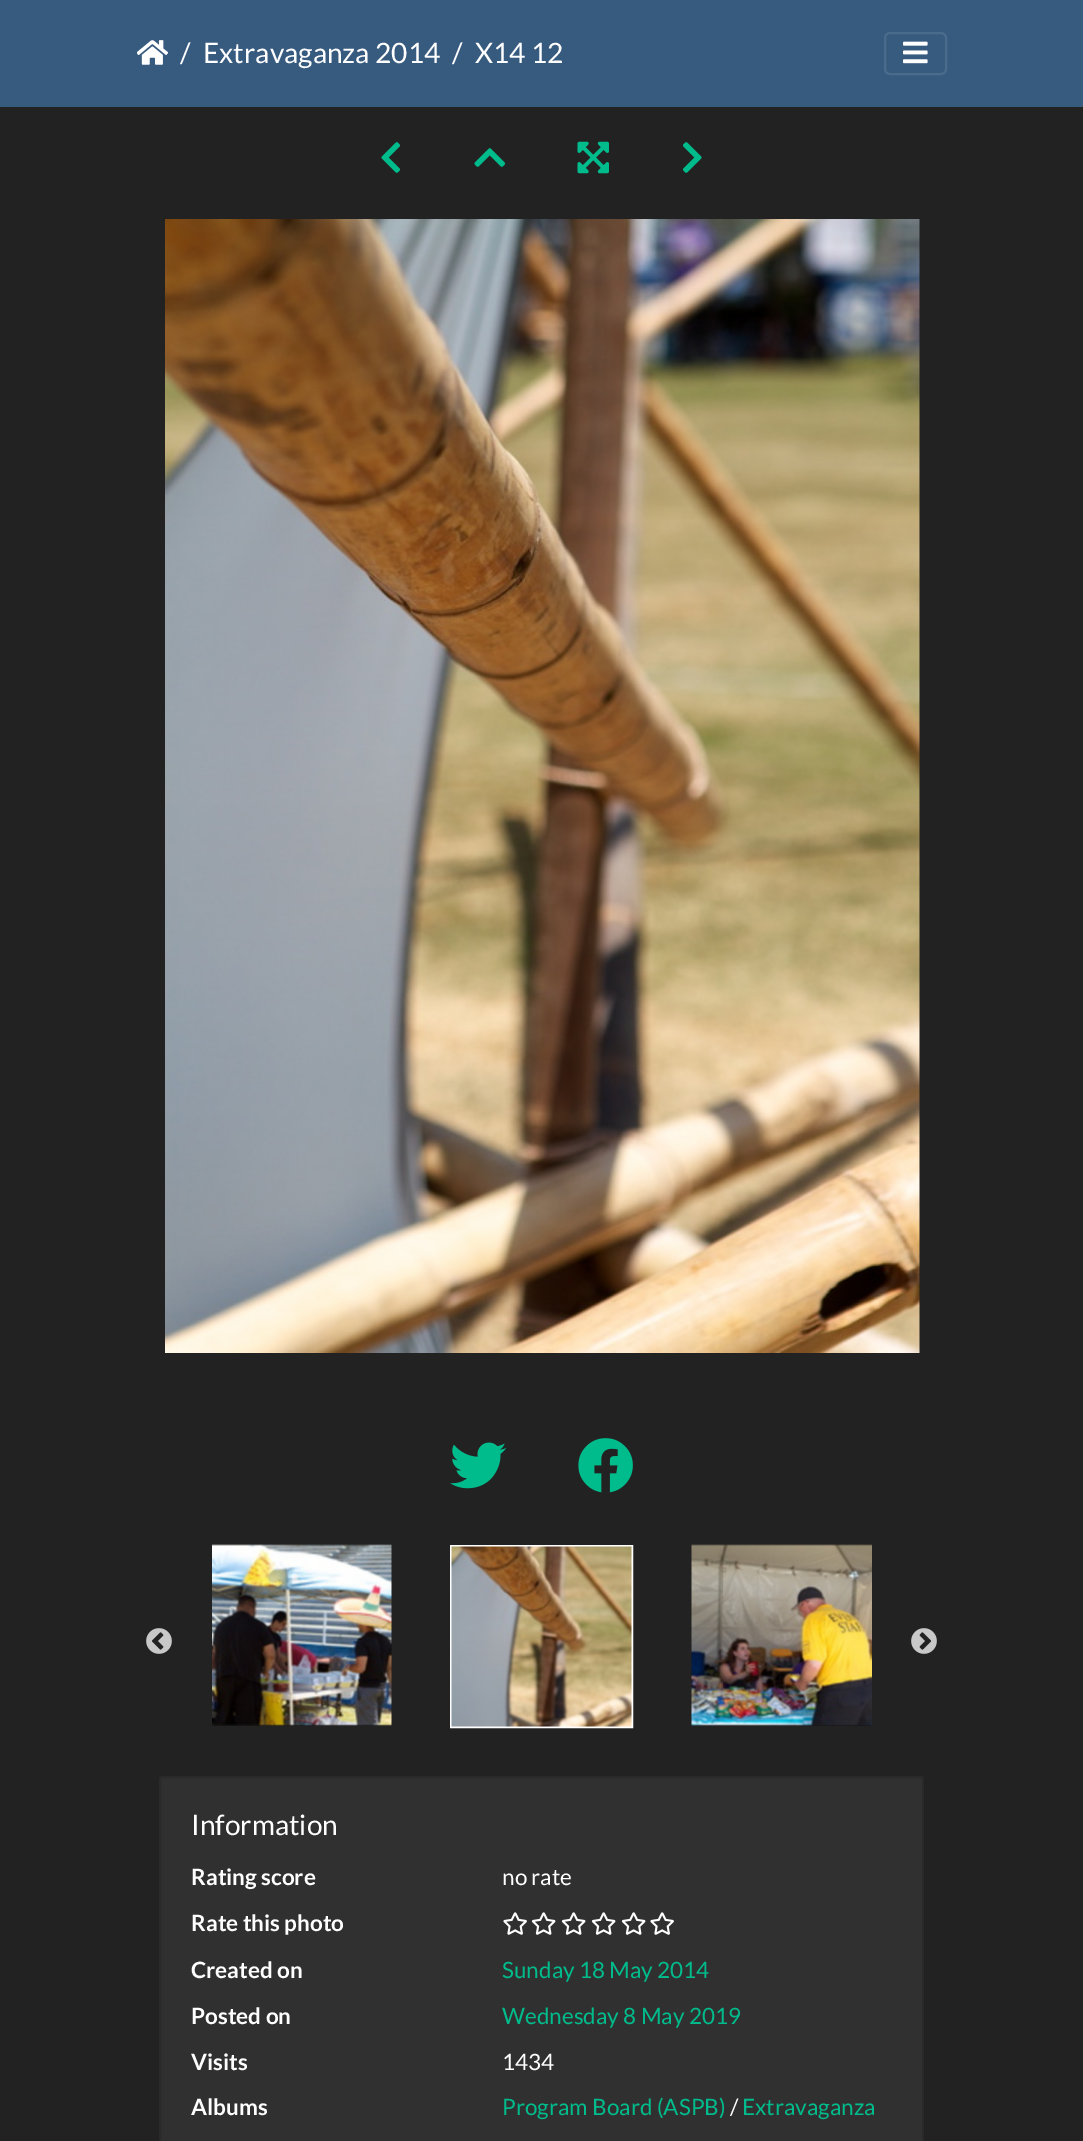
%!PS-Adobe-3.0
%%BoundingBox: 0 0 1083 2141
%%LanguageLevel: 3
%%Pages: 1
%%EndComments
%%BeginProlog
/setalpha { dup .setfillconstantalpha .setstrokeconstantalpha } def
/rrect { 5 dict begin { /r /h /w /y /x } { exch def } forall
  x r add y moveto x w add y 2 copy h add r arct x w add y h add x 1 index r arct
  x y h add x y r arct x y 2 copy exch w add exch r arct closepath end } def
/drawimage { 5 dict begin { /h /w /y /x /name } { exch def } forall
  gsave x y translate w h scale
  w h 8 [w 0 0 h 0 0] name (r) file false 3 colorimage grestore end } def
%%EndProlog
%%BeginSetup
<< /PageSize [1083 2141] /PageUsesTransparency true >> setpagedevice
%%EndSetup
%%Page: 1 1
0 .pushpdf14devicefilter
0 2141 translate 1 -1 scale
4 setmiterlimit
0.133 setgray
0 0 1083 2141 rectfill
0.216 0.353 0.498 setrgbcolor
0 0 1083 107 rectfill
(images/1.raw) 137 40 31 25 drawimage
0.294 0.42 0.549 setrgbcolor
2 setlinewidth
885 33 61 41 5 rrect stroke
(images/2.raw) 903 41 25 23 drawimage
(images/3.raw) 381 142 19 31 drawimage
(images/4.raw) 474 148 32 19 drawimage
(images/5.raw) 577 141 32 33 drawimage
(images/6.raw) 683 142 19 31 drawimage
(images/7.raw) 165 219 755 1134 drawimage
(images/8.raw) 450 1442 57 47 drawimage
(images/9.raw) 578 1438 55 55 drawimage
(images/10.raw) 146 1628 26 26 drawimage
(images/11.raw) 212 1544 180 182 drawimage
1 setgray
451 1546 181 181 rectstroke
(images/12.raw) 451 1546 181 181 drawimage
(images/13.raw) 691 1544 181 182 drawimage
(images/14.raw) 911 1628 26 26 drawimage
0.188 setgray
159 1776 765 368 3 rrect fill
0.12 setalpha
0 setgray
160 1777 763 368 2 rrect stroke
1 setalpha
(images/15.raw) 503 1912 24 23 drawimage
(images/16.raw) 531 1912 25 23 drawimage
(images/16.raw) 561 1912 25 23 drawimage
(images/16.raw) 591 1912 25 23 drawimage
(images/16.raw) 621 1912 25 23 drawimage
(images/15.raw) 650 1912 24 23 drawimage
/Lato-Regular [28.1 0 0 -28.1 0 0] selectfont
1 setgray
180 63 moveto (/) show
203 63 moveto (Extravaganza 2014) show
452 63 moveto (/) show
475 63 moveto (X14 12) show
191 1835 moveto (Information) show
/Lato-Bold [22.5 0 0 -22.5 0 0] selectfont
191 1885 moveto (Rating score) show
/Lato-Regular [22.5 0 0 -22.5 0 0] selectfont
502 1885 moveto (no rate) show
/Lato-Bold [22.5 0 0 -22.5 0 0] selectfont
191 1931 moveto (Rate this photo) show
191 1978 moveto (Created on) show
/Lato-Regular [22.5 0 0 -22.5 0 0] selectfont
0 0.737 0.549 setrgbcolor
502 1978 moveto (Sunday 18 May 2014) show
/Lato-Bold [22.5 0 0 -22.5 0 0] selectfont
1 setgray
191 2024 moveto (Posted on) show
/Lato-Regular [22.5 0 0 -22.5 0 0] selectfont
0 0.737 0.549 setrgbcolor
502 2024 moveto (Wednesday 8 May 2019) show
/Lato-Bold [22.5 0 0 -22.5 0 0] selectfont
1 setgray
191 2070 moveto (Visits) show
/Lato-Regular [22.5 0 0 -22.5 0 0] selectfont
502 2070 moveto (1434) show
/Lato-Bold [22.5 0 0 -22.5 0 0] selectfont
191 2115 moveto (Albums) show
/Lato-Regular [22.5 0 0 -22.5 0 0] selectfont
0 0.737 0.549 setrgbcolor
502 2115 moveto (Program Board \(ASPB\)) show
1 setgray
730 2115 moveto (/) show
0 0.737 0.549 setrgbcolor
742 2115 moveto (Extravaganza) show
.poppdf14devicefilter showpage
%%EOF
